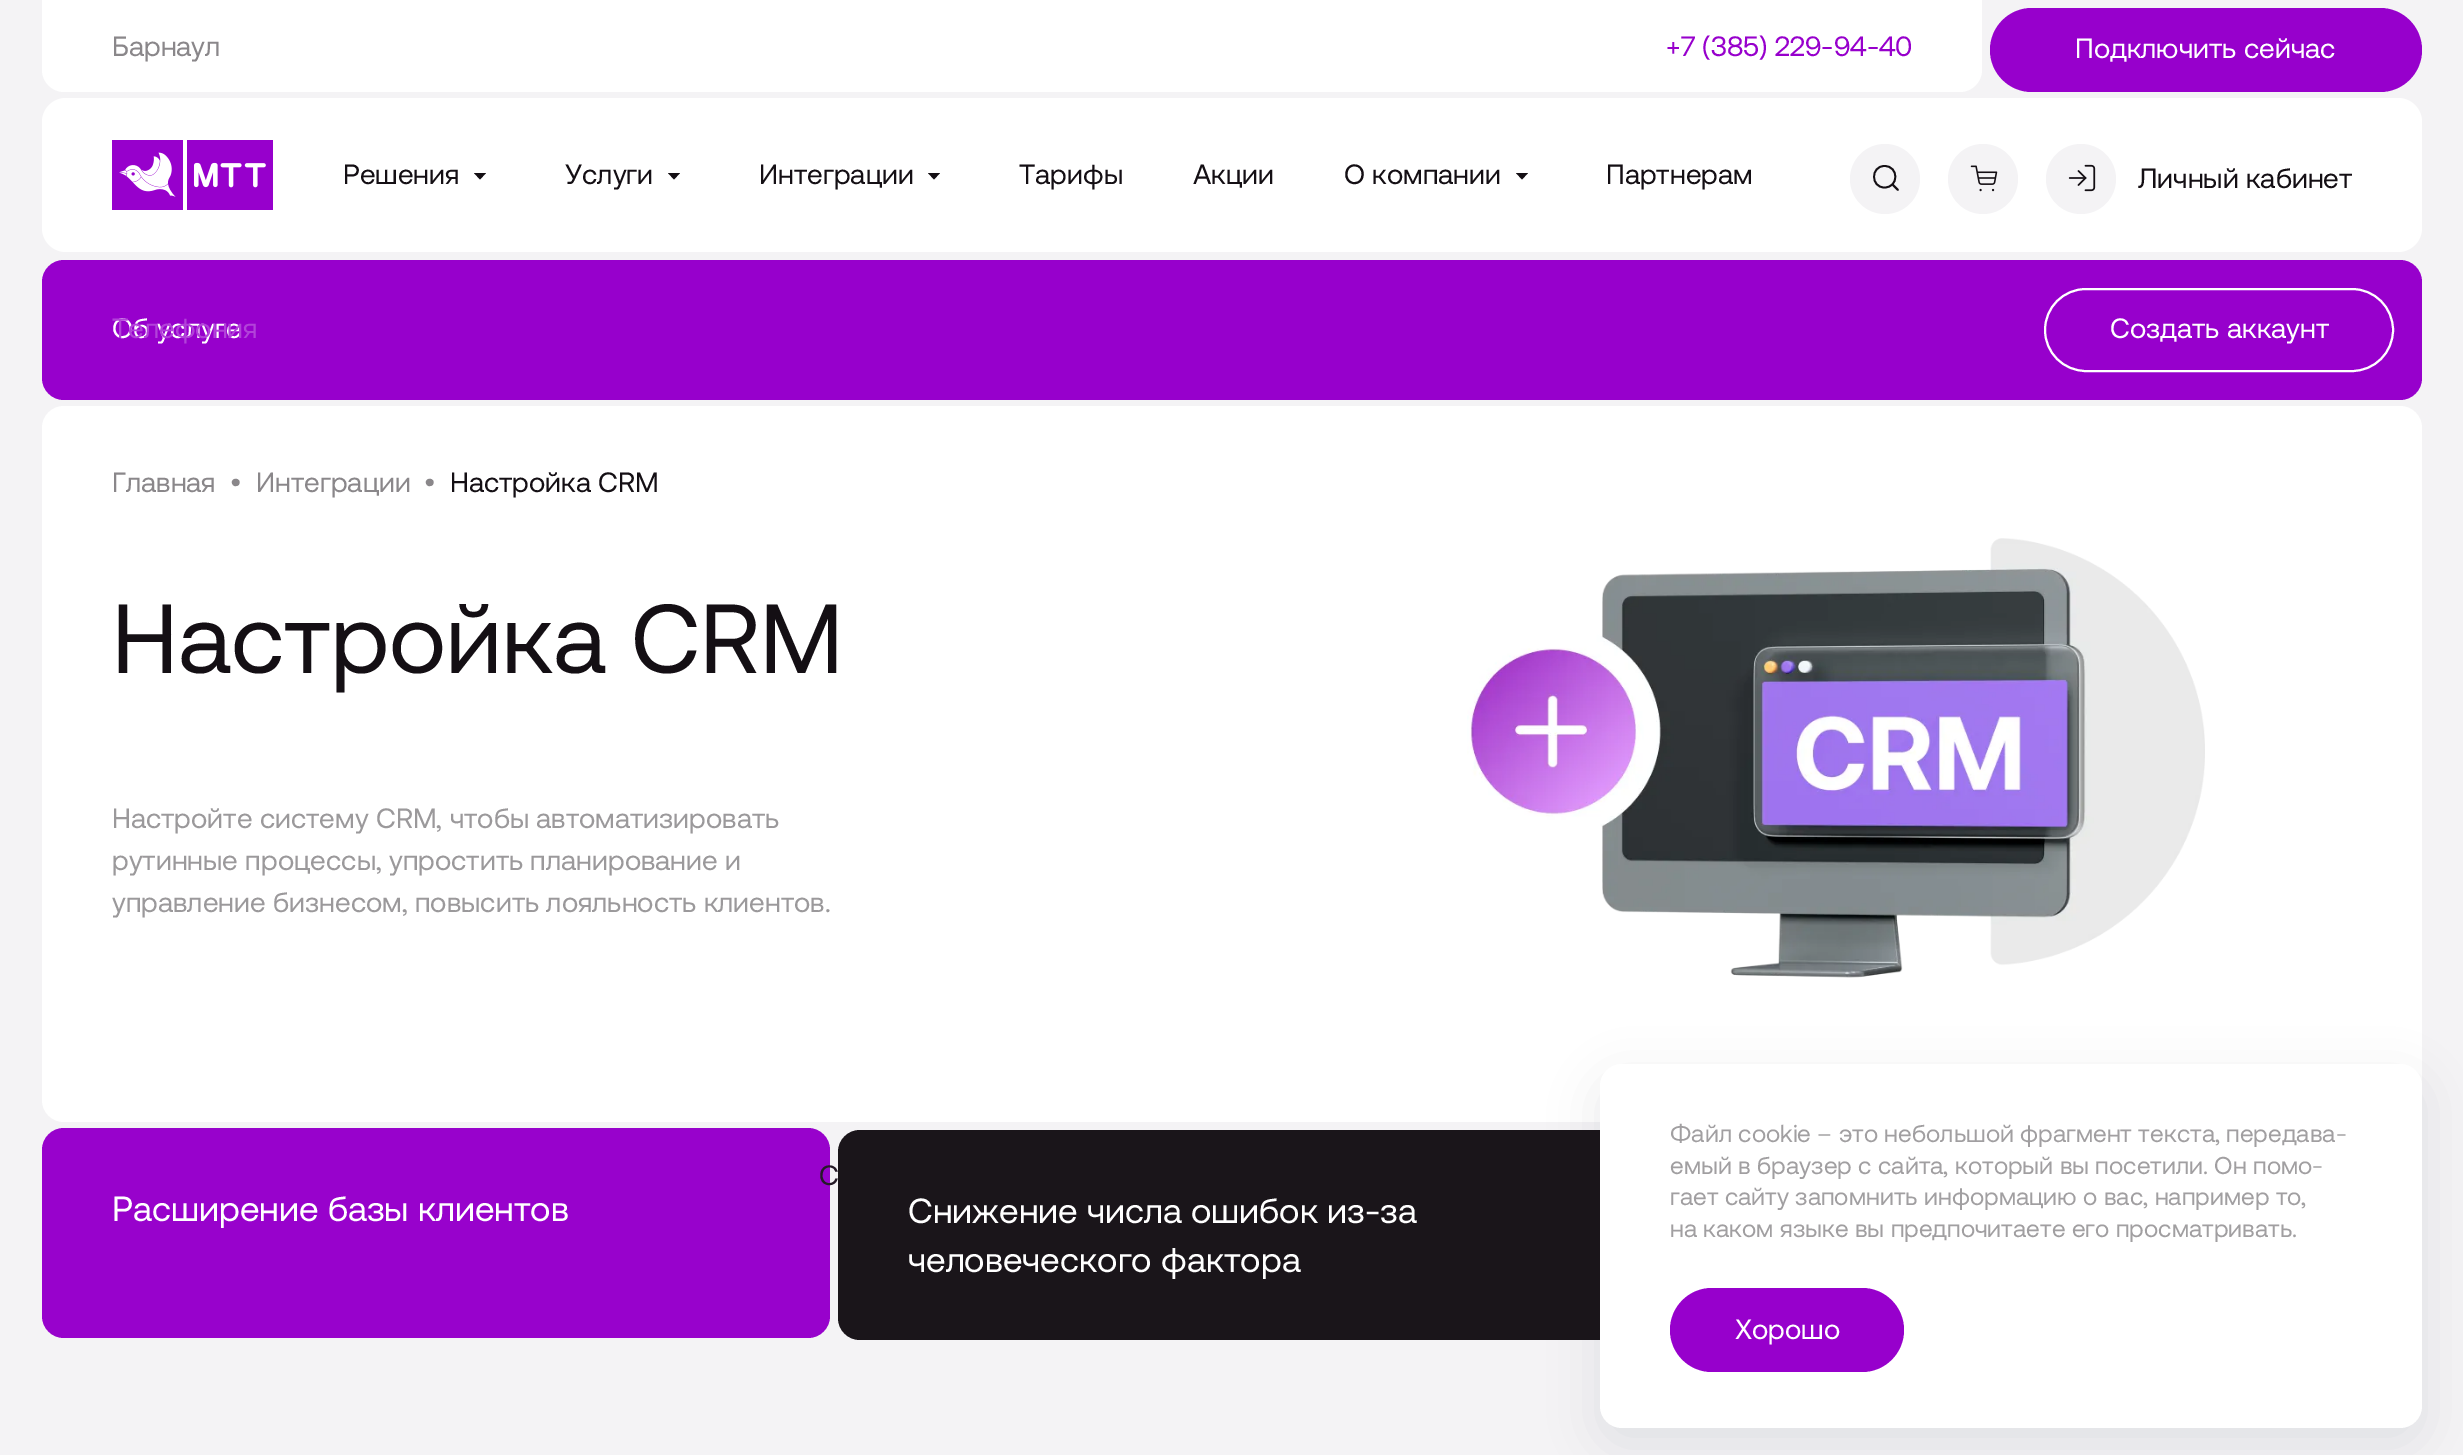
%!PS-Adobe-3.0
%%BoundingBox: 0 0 2463 1455
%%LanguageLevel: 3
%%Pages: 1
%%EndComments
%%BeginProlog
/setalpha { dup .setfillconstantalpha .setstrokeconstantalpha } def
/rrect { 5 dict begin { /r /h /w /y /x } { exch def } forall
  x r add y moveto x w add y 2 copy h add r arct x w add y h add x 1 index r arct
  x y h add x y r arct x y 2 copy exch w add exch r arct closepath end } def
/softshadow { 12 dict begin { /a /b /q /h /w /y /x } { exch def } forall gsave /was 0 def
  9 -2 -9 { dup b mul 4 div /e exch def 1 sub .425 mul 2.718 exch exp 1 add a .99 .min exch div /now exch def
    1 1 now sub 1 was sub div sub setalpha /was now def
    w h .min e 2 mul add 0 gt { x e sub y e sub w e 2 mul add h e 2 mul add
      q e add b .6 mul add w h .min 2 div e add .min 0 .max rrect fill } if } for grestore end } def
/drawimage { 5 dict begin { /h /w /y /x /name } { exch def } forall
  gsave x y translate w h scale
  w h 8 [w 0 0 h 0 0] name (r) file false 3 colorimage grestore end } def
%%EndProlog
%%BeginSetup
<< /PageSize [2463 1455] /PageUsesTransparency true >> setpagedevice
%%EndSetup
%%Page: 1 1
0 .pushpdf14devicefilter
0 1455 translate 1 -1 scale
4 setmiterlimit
0.957 0.953 0.961 setrgbcolor
0 0 2463 1455 rectfill
1 setgray
newpath 42 0 moveto 1982 0 lineto 1982 70 lineto 1982 82 1972 92 1960 92 curveto 64 92 lineto 52 92 42 82 42 70 curveto closepath fill
0.592 0 0.8 setrgbcolor
1990 8 432 84 42 rrect fill
1 setgray
42 98 2380 154 24 rrect fill
(images/1.raw) 112 140 161 70 drawimage
0.078 0.059 0.078 setrgbcolor
newpath 480 179.5 moveto 474 173 lineto 486 173 lineto closepath fill
newpath 674 179.5 moveto 668 173 lineto 680 173 lineto closepath fill
newpath 934 179.5 moveto 928 173 lineto 940 173 lineto closepath fill
newpath 1522 179.5 moveto 1516 173 lineto 1528 173 lineto closepath fill
0.957 0.953 0.961 setrgbcolor
newpath 1885 179 35 0 360 arc closepath fill
0.078 0.059 0.078 setrgbcolor
1.8 setlinewidth
1 setlinecap
1 setlinejoin
newpath 1884.5 187.5 moveto 1899 187.5 1899 166 1884.5 166 curveto 1870.5 166 1870.5 187.5 1884.5 187.5 curveto closepath 1898 190 moveto 1892.5 184.5 lineto stroke
0.957 0.953 0.961 setrgbcolor
newpath 1983 179 35 0 360 arc closepath fill
(images/2.raw) 1970 165 28 27 drawimage
newpath 2081 179 35 0 360 arc closepath fill
(images/3.raw) 2068 164 28 28 drawimage
0.592 0 0.8 setrgbcolor
42 260 2380 140 22 rrect fill
1 setgray
2 setlinewidth
0 setlinecap
0 setlinejoin
2045 289 348 82 41 rrect stroke
42 406 2380 716 22 rrect fill
(images/4.raw) 1467 538 738 440 drawimage
0.596 0.008 0.8 setrgbcolor
42 1128 788 210 22 rrect fill
0.102 0.082 0.102 setrgbcolor
838 1130 788 210 22 rrect fill
0.016 0.078 0.137 setrgbcolor
1600 1080 822 364 22 24 0.08 softshadow
1 setgray
1600 1064 822 364 22 rrect fill
0.592 0 0.8 setrgbcolor
1670 1288 234 84 42 rrect fill
/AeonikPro-Regular [28 0 0 -28 0 0] selectfont
0.541 0.529 0.541 setrgbcolor
112 56 moveto (Барнаул) show
0.592 0 0.8 setrgbcolor
1666 56 moveto (+7 \(385\) 229-94-40) show
1 setgray
2075 58 moveto (Подключить сейчас) show
0.078 0.059 0.078 setrgbcolor
343 184 moveto (Решения) show
565 184 moveto (Услуги) show
759 184 moveto (Интеграции) show
1019 184 moveto (Тарифы) show
1193 184 moveto (Акции) show
1344 184 moveto (О компании) show
1606 184 moveto (Партнерам) show
2138 188 moveto (Личный кабинет) show
0.145 0.102 0.153 setrgbcolor
819 1185 moveto (С) show
1 setgray
112 338 moveto (Об услуге) show
0.698 0.259 0.851 setrgbcolor
112 338 moveto (Телефония) show
1 setgray
2110 338 moveto (Создать аккаунт) show
0.541 0.529 0.541 setrgbcolor
112 492 moveto (Главная) show
230 492 moveto (•) show
256 492 moveto (Интеграции) show
424 492 moveto (•) show
0.078 0.059 0.078 setrgbcolor
450 492 moveto (Настройка CRM) show
/AeonikPro-Regular [98 0 0 -98 0 0] selectfont
112 673 moveto (Настройка CRM) show
/AeonikPro-Regular [28 0 0 -28 0 0] selectfont
0.608 0.6 0.608 setrgbcolor
112 828 moveto (Настройте систему CRM, чтобы автоматизировать) show
112 870 moveto (рутинные процессы, упростить планирование и) show
112 912 moveto (управление бизнесом, повысить лояльность клиентов.) show
/AeonikPro-Regular [35 0 0 -35 0 0] selectfont
1 setgray
112 1221 moveto (Расширение базы клиентов) show
908 1223 moveto (Снижение числа ошибок из-за) show
908 1272 moveto (человеческого фактора) show
/AeonikPro-Regular [24.5 0 0 -24.5 0 0] selectfont
0.631 0.624 0.631 setrgbcolor
1670 1142 moveto (Файл cookie – это небольшой фрагмент текста, передава-) show
1670 1174 moveto (емый в браузер с сайта, который вы посетили. Он помо-) show
1670 1205 moveto (гает сайту запомнить информацию о вас, например то,) show
1670 1237 moveto (на каком языке вы предпочитаете его просматривать.) show
/AeonikPro-Regular [28 0 0 -28 0 0] selectfont
1 setgray
1735 1339 moveto (Хорошо) show
.poppdf14devicefilter showpage
%%EOF
